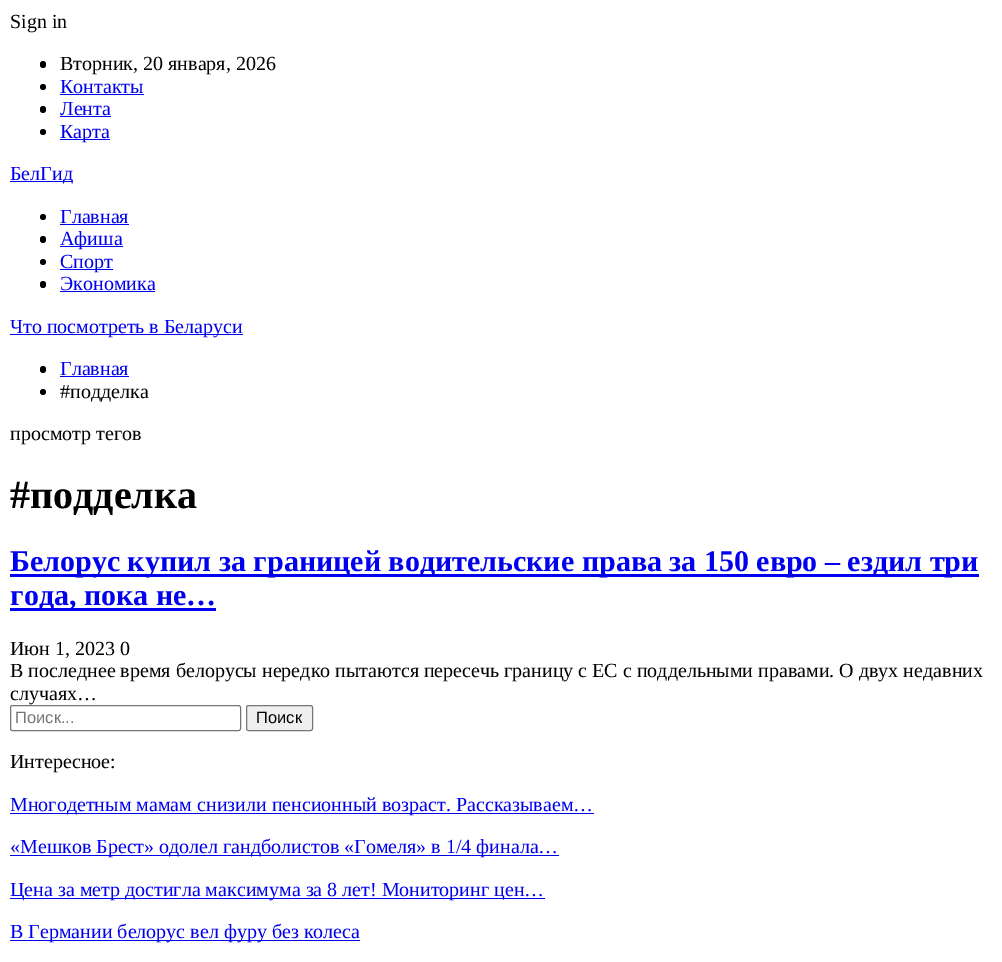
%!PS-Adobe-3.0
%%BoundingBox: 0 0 1002 962
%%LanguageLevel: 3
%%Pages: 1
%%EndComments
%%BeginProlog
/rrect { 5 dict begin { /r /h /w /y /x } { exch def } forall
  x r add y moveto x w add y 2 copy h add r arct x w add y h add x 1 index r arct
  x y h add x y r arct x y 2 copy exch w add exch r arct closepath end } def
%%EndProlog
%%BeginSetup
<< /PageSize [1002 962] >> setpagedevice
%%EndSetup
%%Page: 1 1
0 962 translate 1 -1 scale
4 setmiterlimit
1 setgray
0 0 1002 962 rectfill
0 setgray
40 61 6 7 3 rrect fill
newpath 43 87 3 0 360 arc closepath fill
0 0 0.933 setrgbcolor
60 94 84 1 rectfill
0 setgray
40 106 6 7 3 rrect fill
0 0 0.933 setrgbcolor
60 116 51 1 rectfill
0 setgray
newpath 43 132 3 0 360 arc closepath fill
0 0 0.933 setrgbcolor
60 139 50 1 rectfill
10 181 63 1 rectfill
0 setgray
newpath 43 217 3 0 360 arc closepath fill
0 0 0.933 setrgbcolor
60 224 69 1 rectfill
0 setgray
40 236 6 7 3 rrect fill
0 0 0.933 setrgbcolor
60 246 63 1 rectfill
0 setgray
newpath 43 262 3 0 360 arc closepath fill
0 0 0.933 setrgbcolor
60 269 53 1 rectfill
0 setgray
40 281 6 7 3 rrect fill
0 0 0.933 setrgbcolor
60 291 95 1 rectfill
10 334 233 1 rectfill
0 setgray
40 366 6 7 3 rrect fill
0 0 0.933 setrgbcolor
60 376 69 1 rectfill
0 setgray
newpath 43 392 3 0 360 arc closepath fill
0 0 0.933 setrgbcolor
10 574 969 3 rectfill
10 608 206 3 rectfill
0.463 setgray
10.5 705.5 230 25 2 rrect stroke
0.937 setgray
246.5 705.5 66 25 2 rrect gsave fill grestore
0.463 setgray
stroke
0 0 0.933 setrgbcolor
10 813 584 1 rectfill
10 855 549 1 rectfill
10 898 535 1 rectfill
10 940 350 1 rectfill
/LiberationSerif-Regular [20 0 0 -20 0 0] selectfont
0 setgray
10 28 moveto (Sign in) show
60 70 moveto (Вторник, 20 января, 2026) show
0 0 0.933 setrgbcolor
60 93 moveto (Контакты) show
60 115 moveto (Лента) show
60 138 moveto (Карта) show
10 180 moveto (БелГид) show
60 223 moveto (Главная) show
60 245 moveto (Афиша) show
60 268 moveto (Спорт) show
60 290 moveto (Экономика) show
10 333 moveto (Что посмотреть в Беларуси) show
60 375 moveto (Главная) show
0 setgray
60 398 moveto (#подделка) show
10 440 moveto (просмотр тегов) show
/LiberationSerif-Bold [40 0 0 -40 0 0] selectfont
10 508 moveto (#подделка) show
/LiberationSerif-Bold [30 0 0 -30 0 0] selectfont
0 0 0.933 setrgbcolor
10 571 moveto (Белорус купил за границей водительские права за 150 евро – ездил три) show
10 605 moveto (года, пока не…) show
/LiberationSerif-Regular [20 0 0 -20 0 0] selectfont
0 setgray
10 655 moveto (Июн 1, 2023 0) show
10 677 moveto (В последнее время белорусы нередко пытаются пересечь границу с ЕС с поддельными правами. О двух недавних) show
10 700 moveto (случаях…) show
/LiberationSans-Regular [16.5 0 0 -16.5 0 0] selectfont
0.459 setgray
15 723 moveto (Поиск...) show
0 setgray
256 723 moveto (Поиск) show
/LiberationSerif-Regular [20 0 0 -20 0 0] selectfont
10 768 moveto (Интересное:) show
0 0 0.933 setrgbcolor
10 811 moveto (Многодетным мамам снизили пенсионный возраст. Рассказываем…) show
10 853 moveto («Мешков Брест» одолел гандболистов «Гомеля» в 1/4 финала…) show
10 896 moveto (Цена за метр достигла максимума за 8 лет! Мониторинг цен…) show
10 938 moveto (В Германии белорус вел фуру без колеса) show
showpage
%%EOF
